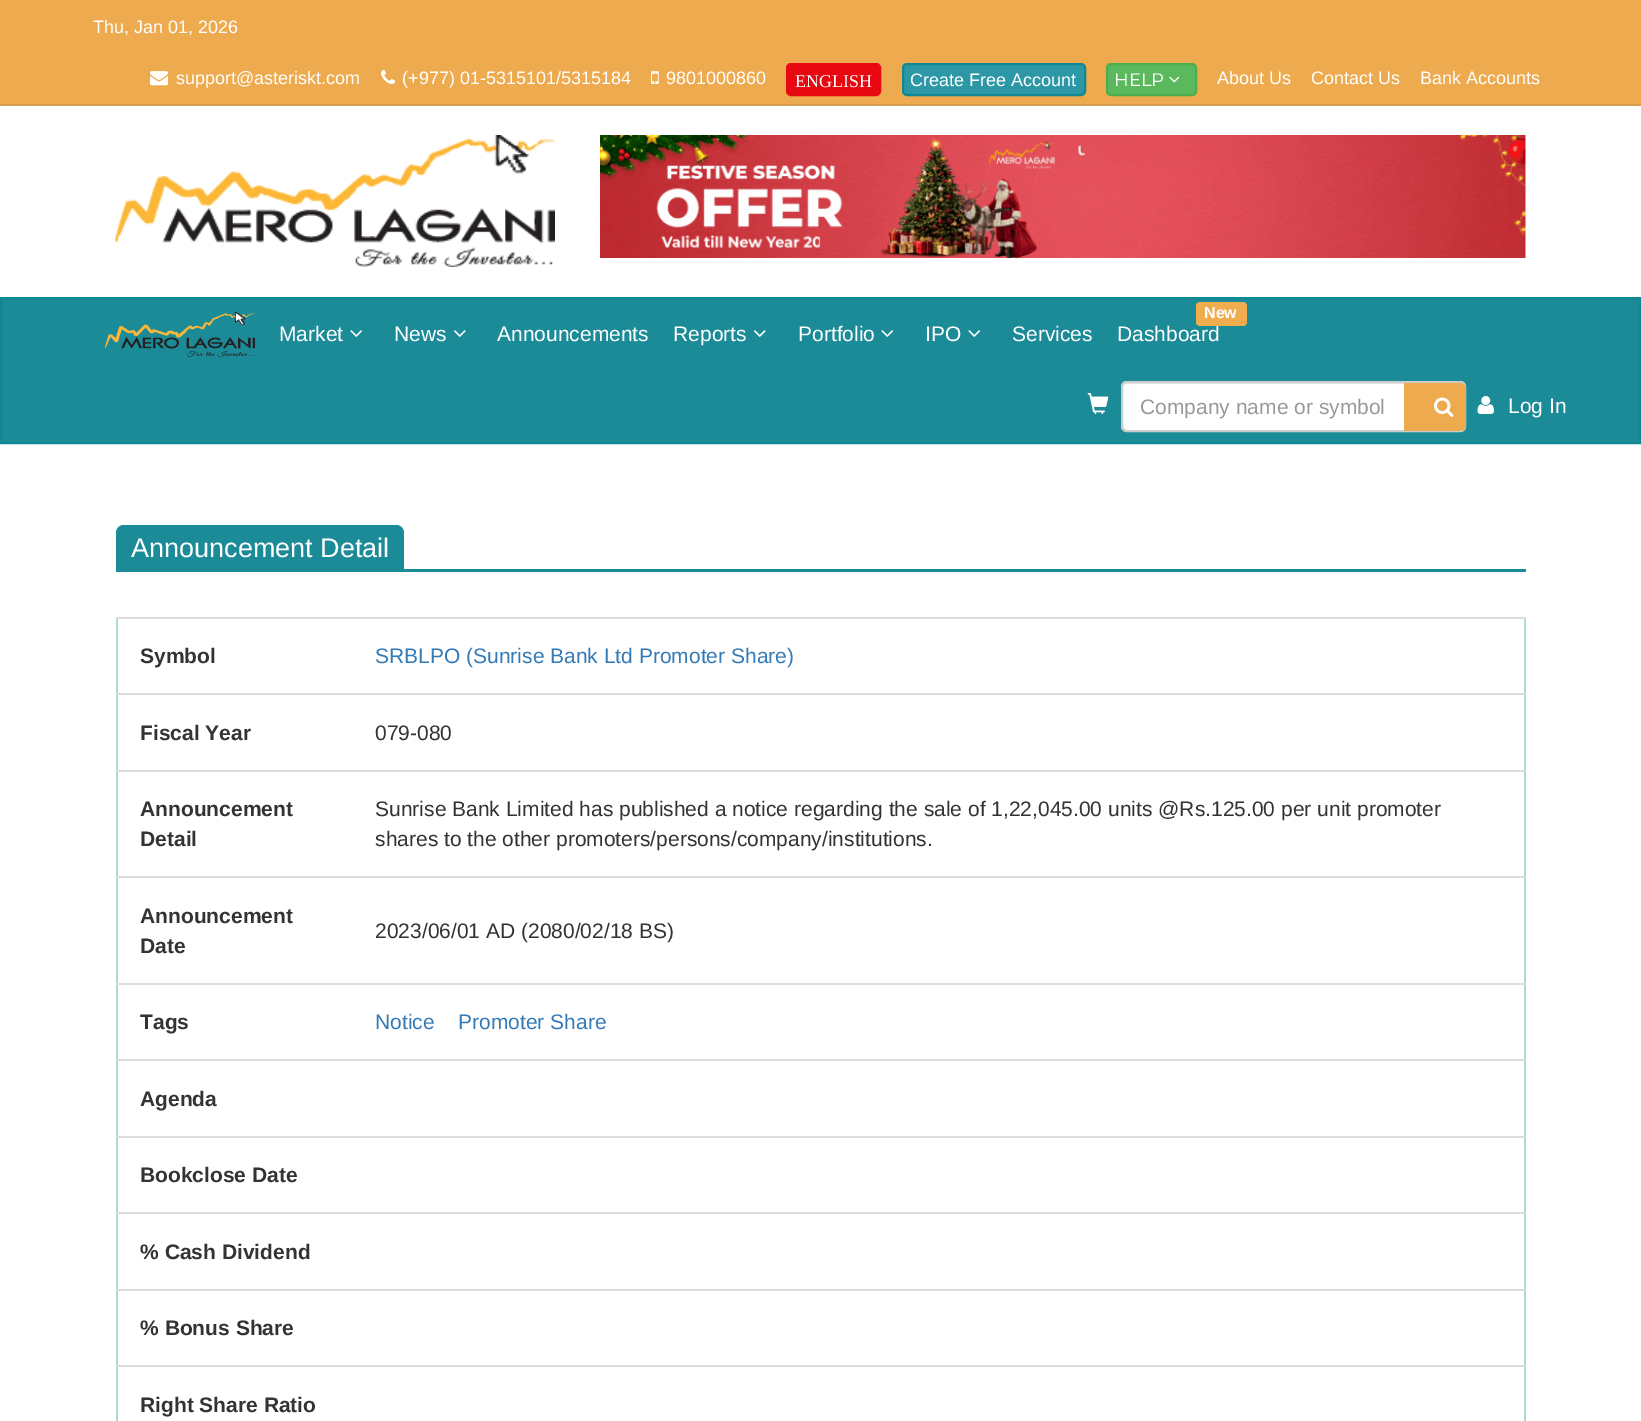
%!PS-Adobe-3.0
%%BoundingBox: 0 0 1641 1421
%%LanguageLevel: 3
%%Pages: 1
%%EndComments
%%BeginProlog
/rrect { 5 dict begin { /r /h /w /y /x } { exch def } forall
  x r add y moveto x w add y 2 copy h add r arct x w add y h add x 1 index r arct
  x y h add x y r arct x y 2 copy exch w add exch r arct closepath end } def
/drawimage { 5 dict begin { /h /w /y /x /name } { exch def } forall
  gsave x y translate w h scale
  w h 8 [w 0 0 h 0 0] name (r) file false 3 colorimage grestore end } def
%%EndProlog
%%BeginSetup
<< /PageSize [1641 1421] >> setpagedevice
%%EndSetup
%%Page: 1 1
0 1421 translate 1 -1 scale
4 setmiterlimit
1 setgray
0 0 1641 1421 rectfill
0.929 0.667 0.306 setrgbcolor
0 0 1641 104 rectfill
0.847 0.624 0.325 setrgbcolor
0 104 1641 2 rectfill
(images/1.raw) 150 71 18 15 drawimage
(images/2.raw) 381 69 15 15 drawimage
(images/3.raw) 651 71 8 13 drawimage
0.91 0.031 0.067 setrgbcolor
787 64 93 31 4 rrect gsave fill grestore
2 setlinewidth
stroke
0.173 0.596 0.647 setrgbcolor
903 64 182 31 4 rrect gsave fill grestore
0.059 0.529 0.58 setrgbcolor
stroke
0.361 0.722 0.361 setrgbcolor
1107 64 89 31 4 rrect gsave fill grestore
0.298 0.682 0.298 setrgbcolor
stroke
(images/4.raw) 1169 76 11 7 drawimage
(images/5.raw) 115 135 440 132 drawimage
(images/6.raw) 600 135 926 123 drawimage
0.11 0.545 0.596 setrgbcolor
newpath 1 298 moveto 1640 298 lineto 1640 443 lineto 1 443 lineto closepath gsave fill grestore
0.059 0.529 0.58 setrgbcolor
stroke
(images/7.raw) 105 312 150 45 drawimage
(images/8.raw) 350 330 12 7 drawimage
(images/9.raw) 454 330 12 7 drawimage
(images/9.raw) 754 330 12 7 drawimage
(images/8.raw) 881 330 12 7 drawimage
(images/8.raw) 968 330 12 7 drawimage
(images/10.raw) 1087 393 22 21 drawimage
1 setgray
1121 381 345 51 6 rrect fill
0.925 setgray
newpath 1126 384 moveto 1460 384 lineto 1462 384 1464 386 1464 388 curveto 1464 385 1462 383 1459 383 curveto 1127 383 lineto 1124 383 1122 385 1122 388 curveto 1122 386 1124 384 1126 384 curveto closepath fill
0.8 setgray
1122 382 343 49 5 rrect stroke
0.929 0.667 0.306 setrgbcolor
newpath 1404 383 moveto 1460 383 lineto 1463.5 383 1466 385.5 1466 389 curveto 1466 425 lineto 1466 428.5 1463.5 431 1460 431 curveto 1404 431 lineto closepath fill
(images/11.raw) 1434 397 20 20 drawimage
(images/12.raw) 1477 396 17 18 drawimage
0.11 0.545 0.596 setrgbcolor
116 569 1410 3 rectfill
newpath 124 525 moveto 396 525 lineto 400.5 525 404 528.5 404 533 curveto 404 570 lineto 116 570 lineto 116 533 lineto 116 528.5 119.5 525 124 525 curveto closepath fill
0.675 0.863 0.812 setrgbcolor
1524 617 2 804 rectfill
116 617 2 804 rectfill
0.867 setgray
116 617 1410 2 rectfill
116 693 1410 2 rectfill
116 770 1410 2 rectfill
116 876 1410 2 rectfill
116 983 1410 2 rectfill
116 1059 1410 2 rectfill
116 1136 1410 2 rectfill
116 1212 1410 2 rectfill
116 1289 1410 2 rectfill
116 1365 1410 2 rectfill
/LiberationSans-Regular [18 0 0 -18 0 0] selectfont
1 setgray
93 33 moveto (Thu, Jan 01, 2026) show
176 84 moveto (support@asteriskt.com) show
402 84 moveto (\(+977\) 01-5315101/5315184) show
666 84 moveto (9801000860) show
/LiberationSerif-Regular [18 0 0 -18 0 0] selectfont
795 87 moveto (ENGLISH) show
/LiberationSans-Regular [18 0 0 -18 0 0] selectfont
910 86 moveto (Create Free Account) show
/Montserrat-Regular [18 0 0 -18 0 0] selectfont
1114 86 moveto (HELP) show
/LiberationSans-Regular [18 0 0 -18 0 0] selectfont
1217 84 moveto (About Us) show
1311 84 moveto (Contact Us) show
1420 84 moveto (Bank Accounts) show
/LiberationSans-Regular [21 0 0 -21 0 0] selectfont
279 341 moveto (Market) show
394 341 moveto (News) show
497 341 moveto (Announcements) show
673 341 moveto (Reports) show
798 341 moveto (Portfolio) show
925 341 moveto (IPO) show
1012 341 moveto (Services) show
1117 341 moveto (Dashboard) show
0.941 0.678 0.306 setrgbcolor
1196 302 51 24 4 rrect fill
/LiberationSans-Bold [16 0 0 -16 0 0] selectfont
1 setgray
1204 318 moveto (New) show
/LiberationSans-Regular [21 0 0 -21 0 0] selectfont
0.6 setgray
1140 414 moveto (Company name or symbol) show
1 setgray
1508 413 moveto (Log In) show
/LiberationSans-Regular [27 0 0 -27 0 0] selectfont
131 557 moveto (Announcement Detail) show
/LiberationSans-Bold [21 0 0 -21 0 0] selectfont
0.2 setgray
140 663 moveto (Symbol) show
/LiberationSans-Regular [21 0 0 -21 0 0] selectfont
0.2 0.478 0.718 setrgbcolor
375 663 moveto (SRBLPO \(Sunrise Bank Ltd Promoter Share\)) show
/LiberationSans-Bold [21 0 0 -21 0 0] selectfont
0.2 setgray
140 740 moveto (Fiscal Year) show
/LiberationSans-Regular [21 0 0 -21 0 0] selectfont
375 740 moveto (079-080) show
/LiberationSans-Bold [21 0 0 -21 0 0] selectfont
140 816 moveto (Announcement) show
140 846 moveto (Detail) show
/LiberationSans-Regular [21 0 0 -21 0 0] selectfont
375 816 moveto (Sunrise Bank Limited has published a notice regarding the sale of 1,22,045.00 units @Rs.125.00 per unit promoter) show
375 846 moveto (shares to the other promoters/persons/company/institutions.) show
/LiberationSans-Bold [21 0 0 -21 0 0] selectfont
140 923 moveto (Announcement) show
140 953 moveto (Date) show
/LiberationSans-Regular [21 0 0 -21 0 0] selectfont
375 938 moveto (2023/06/01 AD \(2080/02/18 BS\)) show
/LiberationSans-Bold [21 0 0 -21 0 0] selectfont
140 1029 moveto (Tags) show
/LiberationSans-Regular [21 0 0 -21 0 0] selectfont
0.2 0.478 0.718 setrgbcolor
375 1029 moveto (Notice) show
458 1029 moveto (Promoter Share) show
/LiberationSans-Bold [21 0 0 -21 0 0] selectfont
0.2 setgray
140 1106 moveto (Agenda) show
140 1182 moveto (Bookclose Date) show
140 1259 moveto (% Cash Dividend) show
140 1335 moveto (% Bonus Share) show
140 1412 moveto (Right Share Ratio) show
showpage
%%EOF
